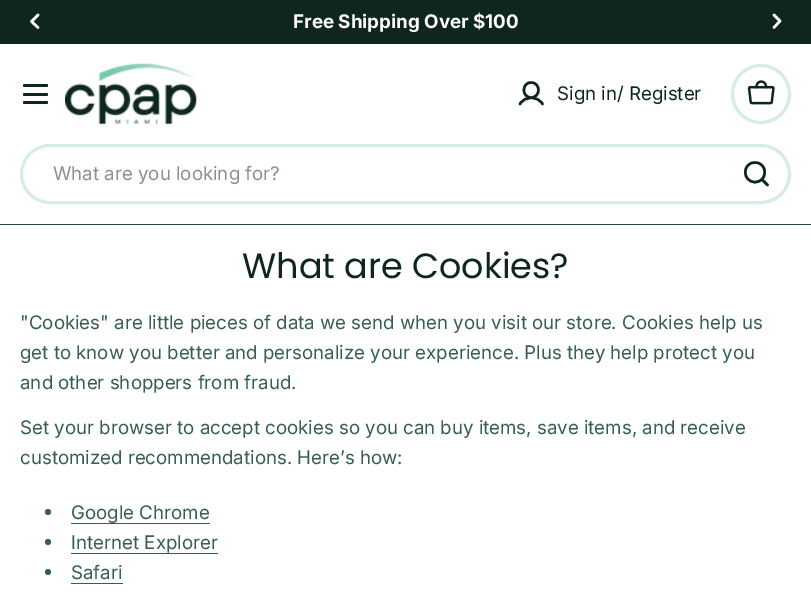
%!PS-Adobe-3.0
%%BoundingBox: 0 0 811 596
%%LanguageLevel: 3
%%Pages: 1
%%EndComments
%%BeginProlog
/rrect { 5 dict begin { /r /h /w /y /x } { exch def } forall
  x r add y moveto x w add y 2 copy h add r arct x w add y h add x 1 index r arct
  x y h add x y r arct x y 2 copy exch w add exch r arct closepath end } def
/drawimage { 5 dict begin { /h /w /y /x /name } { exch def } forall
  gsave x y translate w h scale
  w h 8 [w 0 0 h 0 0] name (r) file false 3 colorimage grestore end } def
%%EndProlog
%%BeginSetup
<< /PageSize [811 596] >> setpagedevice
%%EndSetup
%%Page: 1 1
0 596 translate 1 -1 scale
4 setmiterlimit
1 setgray
0 0 811 596 rectfill
0.055 0.149 0.118 setrgbcolor
0 0 811 44 rectfill
1 setgray
2.5 setlinewidth
1 setlinecap
1 setlinejoin
newpath 38 27.5 moveto 31.5 21.5 lineto 38 15 lineto stroke
newpath 774 15 moveto 780 21 lineto 774 27.5 lineto stroke
0.055 0.149 0.118 setrgbcolor
23 93 25 3 1.5 rrect fill
23 84 25 3 1.5 rrect fill
23 101 25 3 1.5 rrect fill
(images/1.raw) 65 63 132 61 drawimage
newpath 531 97.5 moveto 541 97.5 541 82.5 531 82.5 curveto 521.5 82.5 521.5 97.5 531 97.5 curveto closepath 520 104 moveto 525 95.5 537.5 95.5 542.5 104 curveto stroke
0.839 0.925 0.902 setrgbcolor
3 setlinewidth
0 setlinecap
0 setlinejoin
newpath 761 94 28.5 0 360 arc closepath stroke
(images/2.raw) 747 80 28 25 drawimage
21.5 145.5 768 57 28.5 rrect stroke
0.055 0.149 0.118 setrgbcolor
2.5 setlinewidth
1 setlinecap
1 setlinejoin
newpath 755 182 moveto 768 182 768 162.5 755 162.5 curveto 742 162.5 742 182 755 182 curveto closepath 762 179.5 moveto 767.5 185 lineto stroke
0.122 0.29 0.239 setrgbcolor
0 224 811 1 rectfill
0.208 0.369 0.329 setrgbcolor
newpath 48 512 3 0 360 arc closepath fill
71 523 139 1 rectfill
newpath 48 542 3 0 360 arc closepath fill
71 553 147 1 rectfill
newpath 48 572 3 0 360 arc closepath fill
71 583 52 1 rectfill
/Inter-Bold [18.75 0 0 -18.75 0 0] selectfont
1 setgray
293 28 moveto (Free Shipping Over $100) show
/Inter-Regular [18.75 0 0 -18.75 0 0] selectfont
0.055 0.149 0.118 setrgbcolor
557 100 moveto (Sign in/ Register) show
0.529 0.576 0.561 setrgbcolor
53 180 moveto (What are you looking for?) show
/Poppins-Regular [35 0 0 -35 0 0] selectfont
0.055 0.149 0.118 setrgbcolor
242 278 moveto (What are Cookies?) show
/Inter-Regular [18.75 0 0 -18.75 0 0] selectfont
0.208 0.369 0.329 setrgbcolor
20 329 moveto ("Cookies" are little pieces of data we send when you visit our store. Cookies help us) show
20 359 moveto (get to know you better and personalize your experience. Plus they help protect you) show
20 389 moveto (and other shoppers from fraud.) show
20 434 moveto (Set your browser to accept cookies so you can buy items, save items, and receive) show
20 464 moveto (customized recommendations. Here’s how:) show
71 519 moveto (Google Chrome) show
71 549 moveto (Internet Explorer) show
71 579 moveto (Safari) show
showpage
%%EOF
